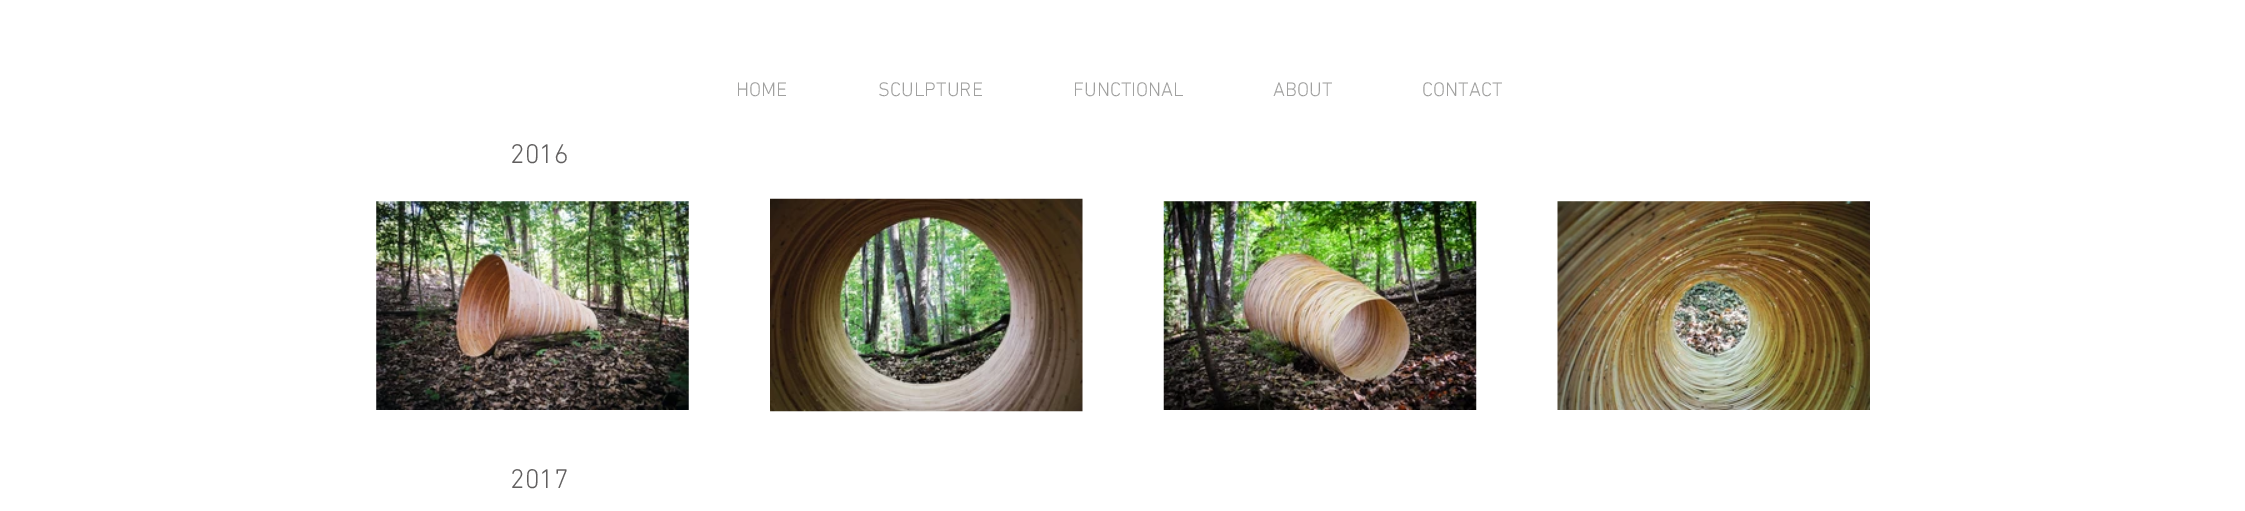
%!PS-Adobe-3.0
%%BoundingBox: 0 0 2245 511
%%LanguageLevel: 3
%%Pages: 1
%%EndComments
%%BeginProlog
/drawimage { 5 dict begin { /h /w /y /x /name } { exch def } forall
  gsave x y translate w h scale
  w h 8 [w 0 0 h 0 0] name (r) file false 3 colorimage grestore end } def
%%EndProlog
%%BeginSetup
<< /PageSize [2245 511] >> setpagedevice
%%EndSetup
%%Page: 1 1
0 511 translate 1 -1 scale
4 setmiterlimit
1 setgray
0 0 2245 511 rectfill
(images/1.raw) 376 201 313 209 drawimage
(images/2.raw) 770 198 313 214 drawimage
(images/3.raw) 1163 201 314 209 drawimage
(images/4.raw) 1557 201 313 209 drawimage
/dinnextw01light-Light [20 0 0 -20 0 0] selectfont
0.627 0.627 0.624 setrgbcolor
736 96 moveto (HOME) show
878 96 moveto (SCULPTURE) show
1073 96 moveto (FUNCTIONAL) show
1273 96 moveto (ABOUT) show
1422 96 moveto (CONTACT) show
/dinnextw01light-Light [27.5 0 0 -27.5 0 0] selectfont
0.376 0.369 0.369 setrgbcolor
510 163 moveto (2016) show
510 488 moveto (2017) show
showpage
%%EOF
